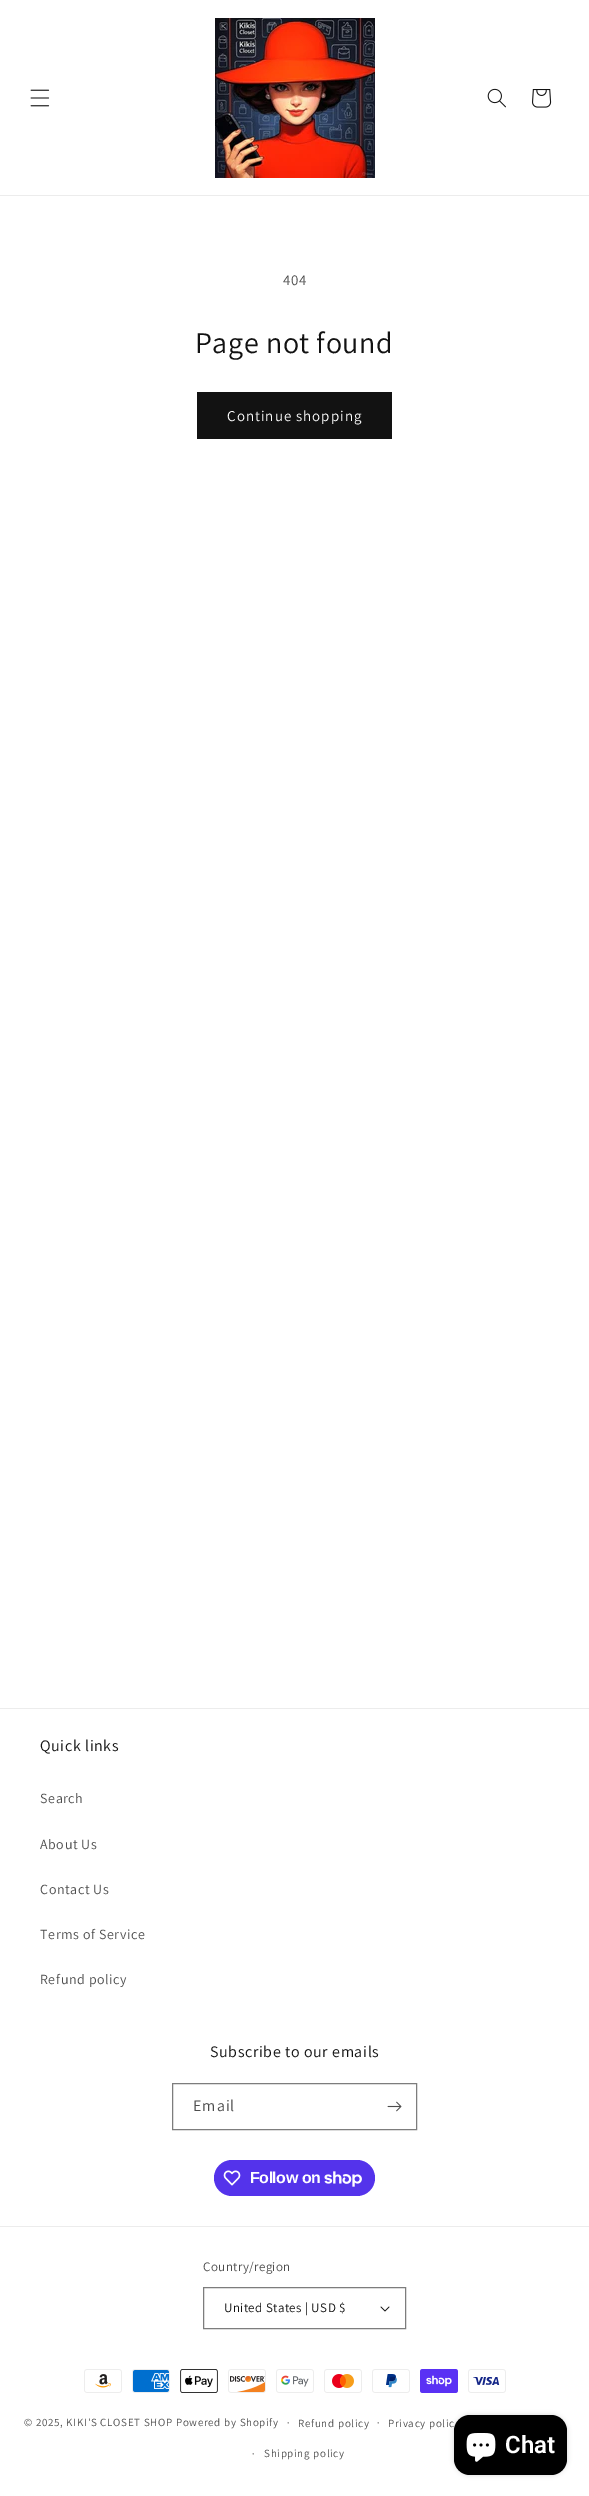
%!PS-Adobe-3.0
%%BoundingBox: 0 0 589 2496
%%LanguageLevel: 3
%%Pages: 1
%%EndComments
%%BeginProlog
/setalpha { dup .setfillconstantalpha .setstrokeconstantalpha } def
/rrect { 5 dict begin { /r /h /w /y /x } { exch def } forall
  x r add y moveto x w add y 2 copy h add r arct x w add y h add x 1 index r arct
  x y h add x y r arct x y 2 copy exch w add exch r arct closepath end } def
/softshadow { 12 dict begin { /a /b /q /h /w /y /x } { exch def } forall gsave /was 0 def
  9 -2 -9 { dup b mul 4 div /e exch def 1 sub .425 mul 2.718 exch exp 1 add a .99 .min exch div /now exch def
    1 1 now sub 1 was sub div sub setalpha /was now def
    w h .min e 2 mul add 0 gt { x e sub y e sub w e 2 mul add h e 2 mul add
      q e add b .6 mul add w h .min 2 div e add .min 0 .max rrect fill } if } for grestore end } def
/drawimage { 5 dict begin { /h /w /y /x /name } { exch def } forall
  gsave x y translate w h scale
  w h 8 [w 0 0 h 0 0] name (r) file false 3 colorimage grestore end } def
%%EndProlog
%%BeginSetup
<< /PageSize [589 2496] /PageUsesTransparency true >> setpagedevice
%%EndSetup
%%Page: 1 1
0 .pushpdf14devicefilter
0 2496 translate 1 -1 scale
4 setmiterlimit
1 setgray
0 0 589 2496 rectfill
0.925 setgray
0 195 589 1 rectfill
(images/1.raw) 30 89 20 18 drawimage
(images/2.raw) 215 18 160 160 drawimage
(images/3.raw) 487 88 19 20 drawimage
(images/4.raw) 532 89 20 19 drawimage
0.071 setgray
197 392 195 47 rectfill
0.925 setgray
0 1708 589 1 rectfill
0.49 setgray
172.5 2083.5 244 46 rectstroke
(images/5.raw) 387 2101 15 11 drawimage
0.329 0.2 0.922 setrgbcolor
214 2160 161 36 18 rrect fill
(images/6.raw) 223 2170 18 16 drawimage
(images/7.raw) 324 2171 38 16 drawimage
0.925 setgray
0 2226 589 1 rectfill
(images/8.raw) 380 2306 10 6 drawimage
0.49 setgray
203.5 2287.5 202 41 rectstroke
(images/9.raw) 84 2369 38 24 drawimage
(images/10.raw) 132 2369 38 24 drawimage
(images/11.raw) 180 2369 38 24 drawimage
(images/12.raw) 228 2369 38 24 drawimage
(images/13.raw) 276 2369 38 24 drawimage
(images/14.raw) 324 2369 38 24 drawimage
(images/15.raw) 372 2369 38 24 drawimage
(images/16.raw) 420 2369 38 24 drawimage
(images/17.raw) 468 2369 38 24 drawimage
0 setgray
454 2415 113 60 16 2.5 0.15 softshadow
/Assistant-Regular [15 0 0 -15 0 0] selectfont
0.302 setgray
283 285 moveto 0.6 0 (404) ashow
/Assistant-Regular [30 0 0 -30 0 0] selectfont
0.071 setgray
195 353 moveto 0.6 0 (Page not found) ashow
/Assistant-Regular [15 0 0 -15 0 0] selectfont
1 setgray
227 421 moveto 1 0 (Continue shopping) ashow
/Assistant-Regular [16 0 0 -16 0 0] selectfont
0.071 setgray
40 1751 moveto 0.6 0 (Quick links) ashow
/Assistant-Regular [14 0 0 -14 0 0] selectfont
0.302 setgray
40 1803 moveto 0.6 0 (Search) ashow
40 1849 moveto 0.6 0 (About Us) ashow
40 1894 moveto 0.6 0 (Contact Us) ashow
40 1939 moveto 0.6 0 (Terms of Service) ashow
40 1984 moveto 0.6 0 (Refund policy) ashow
/Assistant-Regular [16 0 0 -16 0 0] selectfont
0.071 setgray
210 2057 moveto 0.6 0 (Subscribe to our emails) ashow
0.302 setgray
193 2111 moveto 1 0 (Email) ashow
/LiberationSans-Bold [16 0 0 -16 0 0] selectfont
1 setgray
250 2183 moveto -0.5 0 (Follow on) ashow
/Assistant-Regular [13 0 0 -13 0 0] selectfont
0.302 setgray
203 2271 moveto 0.4 0 (Country/region) ashow
0.071 setgray
224 2312 moveto 0.4 0 (United States | USD $) ashow
/Assistant-Regular [11 0 0 -11 0 0] selectfont
0.302 setgray
24 2426 moveto 0.7 0 (© 2025, KIKI'S CLOSET SHOP Powered by Shopify) ashow
/Assistant-Regular [10 0 0 -10 0 0] selectfont
287 2426 moveto 0.7 0 (·) ashow
/Assistant-Regular [11 0 0 -11 0 0] selectfont
298 2427 moveto 0.7 0 (Refund policy) ashow
/Assistant-Regular [10 0 0 -10 0 0] selectfont
377 2426 moveto 0.7 0 (·) ashow
/Assistant-Regular [11 0 0 -11 0 0] selectfont
388 2427 moveto 0.7 0 (Privacy polic) ashow
/Assistant-Regular [10 0 0 -10 0 0] selectfont
252 2457 moveto 0.7 0 (·) ashow
/Assistant-Regular [11 0 0 -11 0 0] selectfont
264 2457 moveto 0.7 0 (Shipping policy) ashow
0 setgray
454 2415 113 60 16 rrect fill
(images/18.raw) 466 2433 30 29 drawimage
/Roboto-SemiBold [24 0 0 -24 0 0] selectfont
1 setgray
505 2453 moveto (Chat) show
.poppdf14devicefilter showpage
%%EOF
